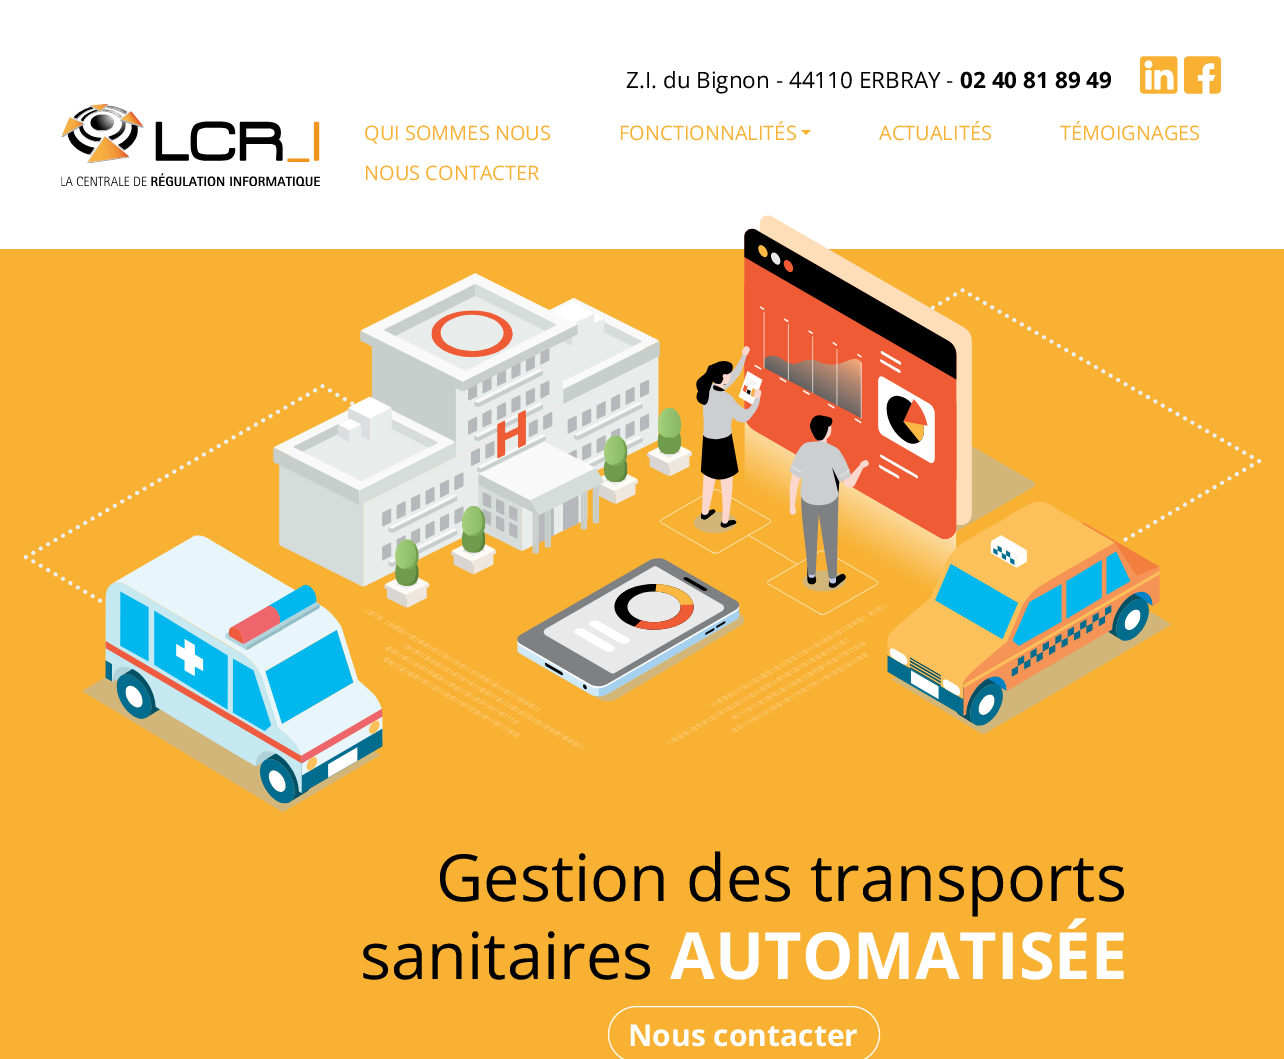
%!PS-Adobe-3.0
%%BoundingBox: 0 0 1284 1059
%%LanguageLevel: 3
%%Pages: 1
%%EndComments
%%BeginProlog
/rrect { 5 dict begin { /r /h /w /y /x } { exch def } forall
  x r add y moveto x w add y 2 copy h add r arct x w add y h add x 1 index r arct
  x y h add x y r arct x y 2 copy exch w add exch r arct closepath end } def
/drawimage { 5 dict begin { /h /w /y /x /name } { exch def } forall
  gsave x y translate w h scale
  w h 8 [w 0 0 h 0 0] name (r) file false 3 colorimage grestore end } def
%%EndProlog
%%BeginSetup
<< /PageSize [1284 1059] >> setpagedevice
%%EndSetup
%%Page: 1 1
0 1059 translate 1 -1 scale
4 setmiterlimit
1 setgray
0 0 1284 1059 rectfill
(images/1.raw) 1140 56 38 38 drawimage
(images/2.raw) 1184 56 37 38 drawimage
(images/3.raw) 61 104 259 82 drawimage
0.973 0.694 0.2 setrgbcolor
newpath 801 130 moveto 811 130 lineto 806 135 lineto closepath fill
0 249 1284 810 rectfill
(images/4.raw) 24 215 1237 597 drawimage
1 setgray
608.5 1006.5 271 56 28 rrect stroke
/OpenSans-Regular [22.5 0 0 -22.5 0 0] selectfont
0 setgray
626 88 moveto (Z.I. du Bignon - 44110 ERBRAY -) show
/OpenSans-Bold [22.5 0 0 -22.5 0 0] selectfont
960 88 moveto (02 40 81 89 49) show
/OpenSans-Regular [20 0 0 -20 0 0] selectfont
0.973 0.694 0.2 setrgbcolor
364 140 moveto (QUI SOMMES NOUS) show
619 140 moveto (FONCTIONNALITÉS) show
879 140 moveto (ACTUALITÉS) show
1060 140 moveto (TÉMOIGNAGES) show
364 180 moveto (NOUS CONTACTER) show
/OpenSans-Regular [65 0 0 -65 0 0] selectfont
0 setgray
436 901 moveto (Gestion des transports) show
360 979 moveto (sanitaires) show
/OpenSans-Bold [65 0 0 -65 0 0] selectfont
1 setgray
670 979 moveto (AUTOMATISÉE) show
/OpenSans-Bold [30 0 0 -30 0 0] selectfont
628 1046 moveto (Nous contacter) show
showpage
%%EOF
